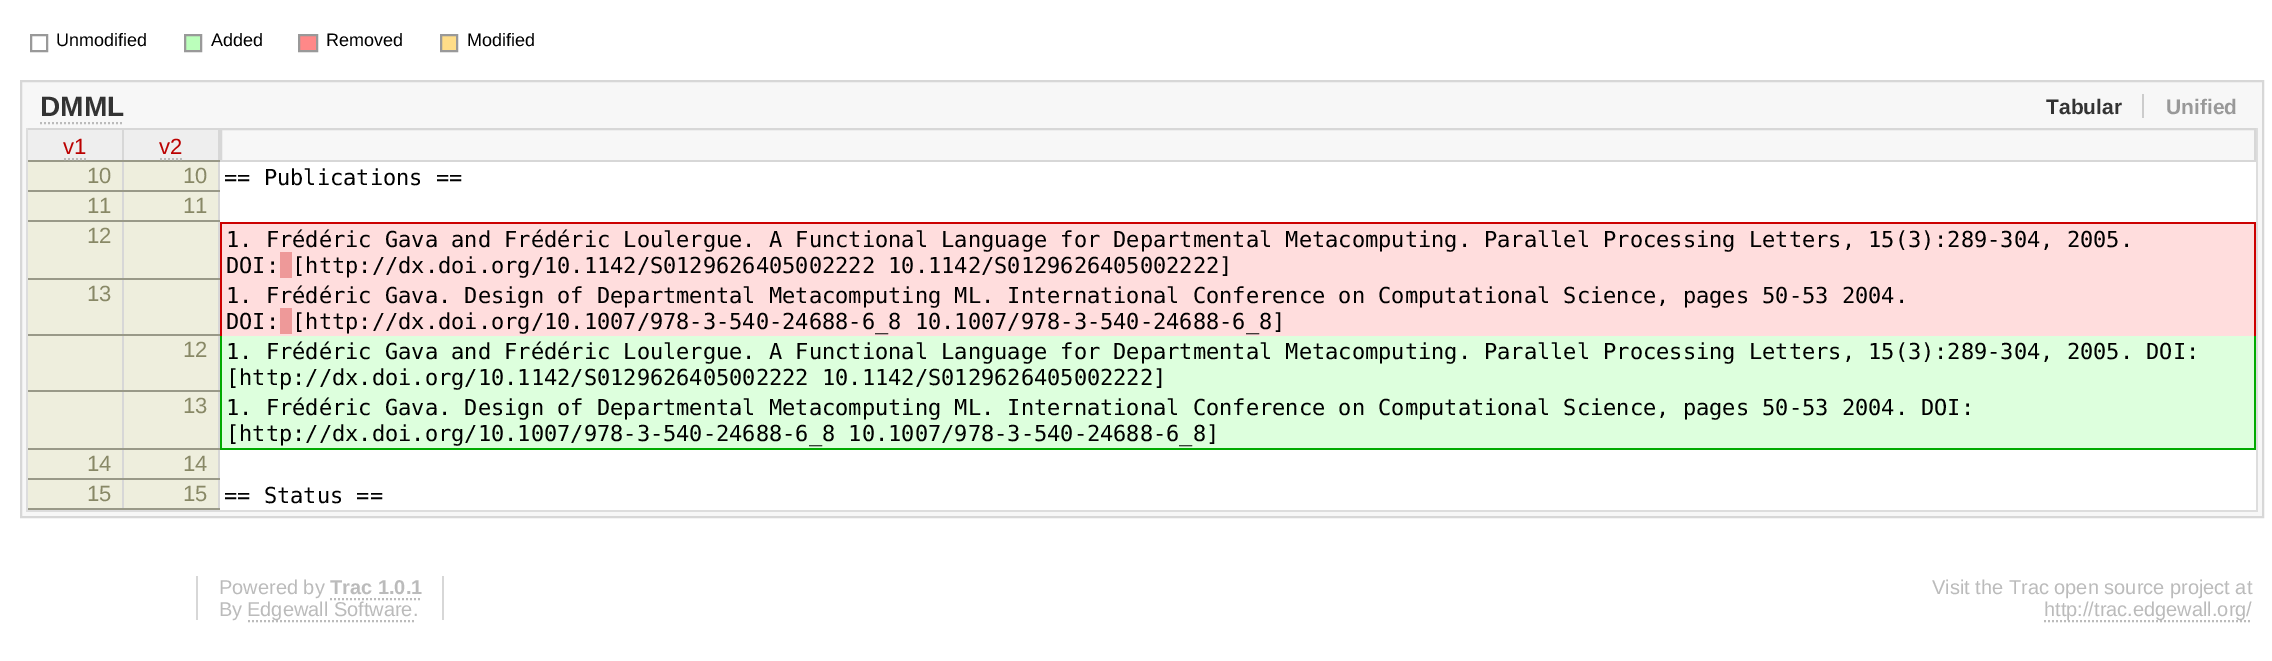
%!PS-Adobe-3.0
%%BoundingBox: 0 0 2272 661
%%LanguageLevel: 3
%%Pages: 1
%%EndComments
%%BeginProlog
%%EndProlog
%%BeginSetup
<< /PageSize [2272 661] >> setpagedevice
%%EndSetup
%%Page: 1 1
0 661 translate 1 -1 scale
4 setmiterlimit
1 setgray
0 0 2272 661 rectfill
0.6 setgray
2 setlinewidth
31 35 16 16 rectstroke
0.733 1 0.733 setrgbcolor
newpath 185 35 moveto 201 35 lineto 201 51 lineto 185 51 lineto closepath gsave fill grestore
0.6 setgray
stroke
1 0.533 0.533 setrgbcolor
newpath 299 35 moveto 317 35 lineto 317 51 lineto 299 51 lineto closepath gsave fill grestore
0.6 setgray
stroke
1 0.867 0.533 setrgbcolor
newpath 441 35 moveto 457 35 lineto 457 51 lineto 441 51 lineto closepath gsave fill grestore
0.6 setgray
stroke
0.969 setgray
newpath 21 81 moveto 2263 81 lineto 2263 517 lineto 21 517 lineto closepath gsave fill grestore
0.843 setgray
stroke
0.733 setgray
[2 2] 0 setdash
newpath 40 123 moveto 124 123 lineto stroke
0.8 setgray
2142 94 2 24 rectfill
0.867 setgray
2256 128 2 384 rectfill
26 510 2232 2 rectfill
26 128 2 384 rectfill
0.933 setgray
28 130 94 30 rectfill
0.843 setgray
28 128 192 2 rectfill
122 128 2 382 rectfill
0.6 0.6 0.533 setrgbcolor
28 160 96 2 rectfill
0.733 setgray
newpath 64 159 moveto 86 159 lineto stroke
0.933 setgray
124 130 94 30 rectfill
0.843 setgray
218 128 2 382 rectfill
0.6 0.6 0.533 setrgbcolor
124 160 96 2 rectfill
0.733 setgray
newpath 160 159 moveto 182 159 lineto stroke
0.843 setgray
[] 0 setdash
221 129 2034 32 rectstroke
0.933 0.933 0.867 setrgbcolor
28 162 94 28 rectfill
0.6 0.6 0.533 setrgbcolor
28 190 192 2 rectfill
0.933 0.933 0.867 setrgbcolor
124 162 94 28 rectfill
1 setgray
220 162 2036 60 rectfill
0.933 0.933 0.867 setrgbcolor
28 192 94 28 rectfill
0.6 0.6 0.533 setrgbcolor
28 220 192 2 rectfill
0.933 0.933 0.867 setrgbcolor
124 192 94 28 rectfill
28 222 94 56 rectfill
0.6 0.6 0.533 setrgbcolor
28 278 192 2 rectfill
0.933 0.933 0.867 setrgbcolor
124 222 94 56 rectfill
1 0.867 0.867 setrgbcolor
222 224 2032 112 rectfill
0.8 0 0 setrgbcolor
220 222 2036 2 rectfill
2254 222 2 114 rectfill
220 222 2 114 rectfill
0.933 0.933 0.867 setrgbcolor
28 280 94 54 rectfill
0.6 0.6 0.533 setrgbcolor
28 334 192 2 rectfill
0.933 0.933 0.867 setrgbcolor
124 280 94 54 rectfill
28 336 94 54 rectfill
0.6 0.6 0.533 setrgbcolor
28 390 192 2 rectfill
0.933 0.933 0.867 setrgbcolor
124 336 94 54 rectfill
0.867 1 0.867 setrgbcolor
222 336 2032 112 rectfill
0 0.667 0 setrgbcolor
2254 336 2 114 rectfill
220 336 2 56 rectfill
0.933 0.933 0.867 setrgbcolor
28 392 94 56 rectfill
0.6 0.6 0.533 setrgbcolor
28 448 192 2 rectfill
0.933 0.933 0.867 setrgbcolor
124 392 94 56 rectfill
0 0.667 0 setrgbcolor
220 448 2036 2 rectfill
220 392 2 58 rectfill
0.933 0.933 0.867 setrgbcolor
28 450 94 28 rectfill
0.6 0.6 0.533 setrgbcolor
28 478 192 2 rectfill
0.933 0.933 0.867 setrgbcolor
124 450 94 28 rectfill
1 setgray
220 450 2036 60 rectfill
0.933 0.933 0.867 setrgbcolor
28 480 94 28 rectfill
0.6 0.6 0.533 setrgbcolor
28 508 192 2 rectfill
0.933 0.933 0.867 setrgbcolor
124 480 94 28 rectfill
0.843 setgray
442 576 2 44 rectfill
196 576 2 44 rectfill
0.733 setgray
[2 2] 0 setdash
newpath 330 599 moveto 422 599 lineto stroke
newpath 248 621 moveto 414 621 lineto stroke
newpath 2044 621 moveto 2252 621 lineto stroke
/LiberationSans-Regular [18 0 0 -18 0 0] selectfont
0 setgray
56 46 moveto (Unmodified) show
211 46 moveto (Added) show
326 46 moveto (Removed) show
467 46 moveto (Modified) show
/LiberationSans-Bold [28 0 0 -28 0 0] selectfont
0.2 setgray
40 116 moveto (DMML) show
/LiberationSans-Bold [21 0 0 -21 0 0] selectfont
2046 114 moveto (Tabular) show
0.6 setgray
2166 114 moveto (Unified) show
/LiberationSans-Regular [22 0 0 -22 0 0] selectfont
0.733 0 0 setrgbcolor
63 154 moveto (v1) show
159 154 moveto (v2) show
0.533 0.533 0.4 setrgbcolor
87 183 moveto (10) show
183 183 moveto (10) show
/DejaVuSansMono-Regular [22 0 0 -22 0 0] selectfont
0 setgray
224 185 moveto (== Publications ==) show
/LiberationSans-Regular [22 0 0 -22 0 0] selectfont
0.533 0.533 0.4 setrgbcolor
87 213 moveto (11) show
183 213 moveto (11) show
87 243 moveto (12) show
/DejaVuSansMono-Regular [22 0 0 -22 0 0] selectfont
0 setgray
226 247 moveto (1. Frédéric Gava and Frédéric Loulergue. A Functional Language for Departmental Metacomputing. Parallel Processing Letters, 15\(3\):289-304, 2005.) show
226 273 moveto (DOI: [http://dx.doi.org/10.1142/S0129626405002222 10.1142/S0129626405002222]) show
0.933 0.6 0.6 setrgbcolor
280 252 12 26 rectfill
/LiberationSans-Regular [22 0 0 -22 0 0] selectfont
0.533 0.533 0.4 setrgbcolor
87 301 moveto (13) show
/DejaVuSansMono-Regular [22 0 0 -22 0 0] selectfont
0 setgray
226 303 moveto (1. Frédéric Gava. Design of Departmental Metacomputing ML. International Conference on Computational Science, pages 50-53 2004.) show
226 329 moveto (DOI: [http://dx.doi.org/10.1007/978-3-540-24688-6_8 10.1007/978-3-540-24688-6_8]) show
0.933 0.6 0.6 setrgbcolor
280 308 12 26 rectfill
/LiberationSans-Regular [22 0 0 -22 0 0] selectfont
0.533 0.533 0.4 setrgbcolor
183 357 moveto (12) show
/DejaVuSansMono-Regular [22 0 0 -22 0 0] selectfont
0 setgray
226 359 moveto (1. Frédéric Gava and Frédéric Loulergue. A Functional Language for Departmental Metacomputing. Parallel Processing Letters, 15\(3\):289-304, 2005. DOI:) show
226 385 moveto ([http://dx.doi.org/10.1142/S0129626405002222 10.1142/S0129626405002222]) show
/LiberationSans-Regular [22 0 0 -22 0 0] selectfont
0.533 0.533 0.4 setrgbcolor
183 413 moveto (13) show
/DejaVuSansMono-Regular [22 0 0 -22 0 0] selectfont
0 setgray
226 415 moveto (1. Frédéric Gava. Design of Departmental Metacomputing ML. International Conference on Computational Science, pages 50-53 2004. DOI:) show
226 441 moveto ([http://dx.doi.org/10.1007/978-3-540-24688-6_8 10.1007/978-3-540-24688-6_8]) show
/LiberationSans-Regular [22 0 0 -22 0 0] selectfont
0.533 0.533 0.4 setrgbcolor
87 471 moveto (14) show
183 471 moveto (14) show
87 501 moveto (15) show
183 501 moveto (15) show
/DejaVuSansMono-Regular [22 0 0 -22 0 0] selectfont
0 setgray
224 503 moveto (== Status ==) show
/LiberationSans-Regular [20 0 0 -20 0 0] selectfont
0.733 setgray
219 594 moveto (Powered by) show
/LiberationSans-Bold [20 0 0 -20 0 0] selectfont
330 594 moveto (Trac 1.0.1) show
/LiberationSans-Regular [20 0 0 -20 0 0] selectfont
219 616 moveto (By) show
247 616 moveto (Edgewall Software.) show
1932 594 moveto (Visit the Trac open source project at) show
2044 616 moveto (http://trac.edgewall.org/) show
showpage
%%EOF
